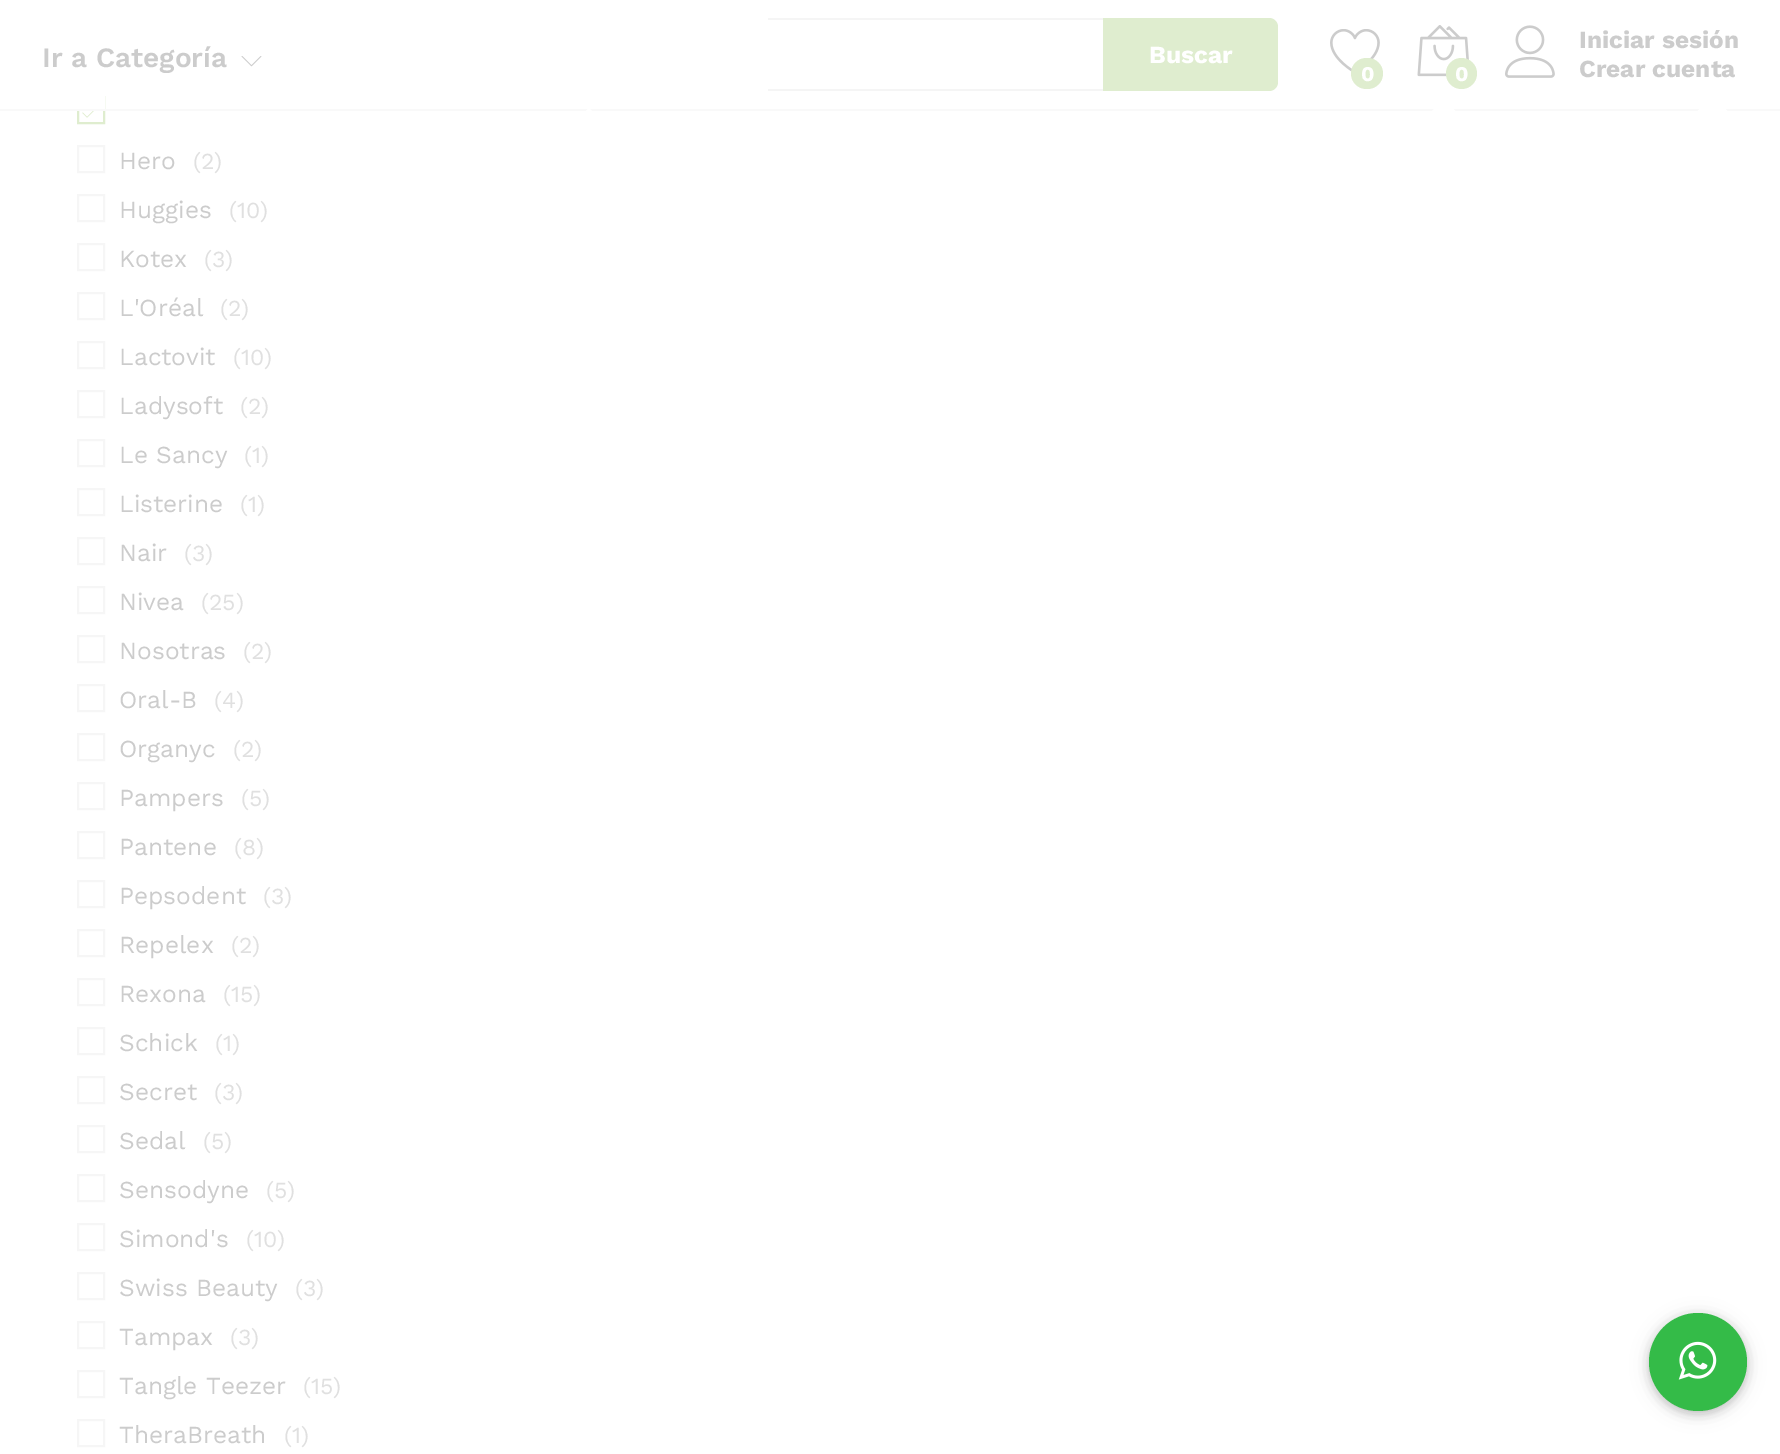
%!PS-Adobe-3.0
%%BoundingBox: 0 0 1780 1454
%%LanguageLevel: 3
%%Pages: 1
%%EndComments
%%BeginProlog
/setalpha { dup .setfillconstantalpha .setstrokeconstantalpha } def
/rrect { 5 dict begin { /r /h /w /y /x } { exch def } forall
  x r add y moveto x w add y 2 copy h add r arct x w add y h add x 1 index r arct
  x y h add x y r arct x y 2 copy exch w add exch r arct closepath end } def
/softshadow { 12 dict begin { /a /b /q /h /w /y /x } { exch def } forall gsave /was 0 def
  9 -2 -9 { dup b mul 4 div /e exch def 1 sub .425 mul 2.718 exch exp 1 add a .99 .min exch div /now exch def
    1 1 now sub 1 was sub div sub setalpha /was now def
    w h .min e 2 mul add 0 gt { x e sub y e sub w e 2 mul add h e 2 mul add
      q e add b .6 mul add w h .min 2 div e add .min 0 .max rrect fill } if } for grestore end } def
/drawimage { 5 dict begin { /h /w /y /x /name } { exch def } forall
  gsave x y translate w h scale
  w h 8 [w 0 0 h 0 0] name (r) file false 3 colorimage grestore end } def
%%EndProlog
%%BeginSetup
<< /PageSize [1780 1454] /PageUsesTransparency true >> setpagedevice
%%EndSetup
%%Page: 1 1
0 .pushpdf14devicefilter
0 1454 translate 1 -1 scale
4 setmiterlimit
1 setgray
0 0 1780 1454 rectfill
0.875 0.929 0.812 setrgbcolor
2 setlinewidth
78 97 26 26 rectstroke
1 setgray
77 96 28 13 rectfill
0.976 setgray
0 109 1780 2 rectfill
(images/1.raw) 241 56 21 11 drawimage
0.961 setgray
768 18 335 2 rectfill
768 89 335 2 rectfill
0.875 0.929 0.812 setrgbcolor
newpath 1103 18 moveto 1269 18 lineto 1274 18 1278 22 1278 27 curveto 1278 82 lineto 1278 87 1274 91 1269 91 curveto 1103 91 lineto closepath fill
1 setgray
newpath 589 108 moveto 605 124 lineto 589 140 lineto 572.5 124 lineto closepath fill
(images/2.raw) 1330 29 50 43 drawimage
0.875 0.929 0.812 setrgbcolor
1351 58 32 31 15.5 rrect fill
(images/3.raw) 1417 25 52 52 drawimage
newpath 1461.5 73.5 15.5 0 360 arc closepath fill
1 setgray
newpath 1443.5 99.5 moveto 1460 115.5 lineto 1443.5 132 lineto 1427.5 115.5 lineto closepath fill
(images/4.raw) 1505 25 50 53 drawimage
newpath 1712.5 96 moveto 1728.5 112 lineto 1712.5 128 lineto 1696.5 112 lineto closepath fill
(images/5.raw) 82 111 12 7 drawimage
0.965 setgray
78 146 26 26 rectstroke
78 195 26 26 rectstroke
78 244 26 26 rectstroke
78 293 26 26 rectstroke
78 342 26 26 rectstroke
78 391 26 26 rectstroke
78 440 26 26 rectstroke
78 489 26 26 rectstroke
78 538 26 26 rectstroke
78 587 26 26 rectstroke
78 636 26 26 rectstroke
78 685 26 26 rectstroke
78 734 26 26 rectstroke
78 783 26 26 rectstroke
78 832 26 26 rectstroke
78 881 26 26 rectstroke
78 930 26 26 rectstroke
78 979 26 26 rectstroke
78 1028 26 26 rectstroke
78 1077 26 26 rectstroke
78 1126 26 26 rectstroke
78 1175 26 26 rectstroke
78 1224 26 26 rectstroke
78 1273 26 26 rectstroke
78 1322 26 26 rectstroke
78 1371 26 26 rectstroke
78 1420 26 26 rectstroke
0 setgray
1649 1316 98 98 49 9 0.12 softshadow
1649 1316 98 98 49 4.5 0.16 softshadow
0.204 0.733 0.282 setrgbcolor
newpath 1698 1362 49 0 360 arc closepath fill
(images/6.raw) 1678 1341 39 39 drawimage
/WorkSans-SemiBold [28 0 0 -28 0 0] selectfont
0.8 setgray
42 67 moveto (Ir a Categoría) show
/WorkSans-Bold [24.5 0 0 -24.5 0 0] selectfont
1 setgray
1149 63 moveto (Buscar) show
/WorkSans-Bold [21 0 0 -21 0 0] selectfont
1361 81 moveto (0) show
1455 81 moveto (0) show
/WorkSans-Bold [24.5 0 0 -24.5 0 0] selectfont
0.8 setgray
1579 48 moveto (Iniciar sesión) show
1579 77 moveto (Crear cuenta) show
/WorkSans-Regular [24.5 0 0 -24.5 0 0] selectfont
119 169 moveto (Hero) show
/WorkSans-Regular [23 0 0 -23 0 0] selectfont
0.878 setgray
193 169 moveto (\(2\)) show
/WorkSans-Regular [24.5 0 0 -24.5 0 0] selectfont
0.8 setgray
119 218 moveto (Huggies) show
/WorkSans-Regular [23 0 0 -23 0 0] selectfont
0.878 setgray
229 218 moveto (\(10\)) show
/WorkSans-Regular [24.5 0 0 -24.5 0 0] selectfont
0.8 setgray
119 267 moveto (Kotex) show
/WorkSans-Regular [23 0 0 -23 0 0] selectfont
0.878 setgray
204 267 moveto (\(3\)) show
/WorkSans-Regular [24.5 0 0 -24.5 0 0] selectfont
0.8 setgray
119 316 moveto (L'Oréal) show
/WorkSans-Regular [23 0 0 -23 0 0] selectfont
0.878 setgray
220 316 moveto (\(2\)) show
/WorkSans-Regular [24.5 0 0 -24.5 0 0] selectfont
0.8 setgray
119 365 moveto (Lactovit) show
/WorkSans-Regular [23 0 0 -23 0 0] selectfont
0.878 setgray
233 365 moveto (\(10\)) show
/WorkSans-Regular [24.5 0 0 -24.5 0 0] selectfont
0.8 setgray
119 414 moveto (Ladysoft) show
/WorkSans-Regular [23 0 0 -23 0 0] selectfont
0.878 setgray
240 414 moveto (\(2\)) show
/WorkSans-Regular [24.5 0 0 -24.5 0 0] selectfont
0.8 setgray
119 463 moveto (Le Sancy) show
/WorkSans-Regular [23 0 0 -23 0 0] selectfont
0.878 setgray
244 463 moveto (\(1\)) show
/WorkSans-Regular [24.5 0 0 -24.5 0 0] selectfont
0.8 setgray
119 512 moveto (Listerine) show
/WorkSans-Regular [23 0 0 -23 0 0] selectfont
0.878 setgray
240 512 moveto (\(1\)) show
/WorkSans-Regular [24.5 0 0 -24.5 0 0] selectfont
0.8 setgray
119 561 moveto (Nair) show
/WorkSans-Regular [23 0 0 -23 0 0] selectfont
0.878 setgray
184 561 moveto (\(3\)) show
/WorkSans-Regular [24.5 0 0 -24.5 0 0] selectfont
0.8 setgray
119 610 moveto (Nivea) show
/WorkSans-Regular [23 0 0 -23 0 0] selectfont
0.878 setgray
201 610 moveto (\(25\)) show
/WorkSans-Regular [24.5 0 0 -24.5 0 0] selectfont
0.8 setgray
119 659 moveto (Nosotras) show
/WorkSans-Regular [23 0 0 -23 0 0] selectfont
0.878 setgray
243 659 moveto (\(2\)) show
/WorkSans-Regular [24.5 0 0 -24.5 0 0] selectfont
0.8 setgray
119 708 moveto (Oral-B) show
/WorkSans-Regular [23 0 0 -23 0 0] selectfont
0.878 setgray
214 708 moveto (\(4\)) show
/WorkSans-Regular [24.5 0 0 -24.5 0 0] selectfont
0.8 setgray
119 757 moveto (Organyc) show
/WorkSans-Regular [23 0 0 -23 0 0] selectfont
0.878 setgray
233 757 moveto (\(2\)) show
/WorkSans-Regular [24.5 0 0 -24.5 0 0] selectfont
0.8 setgray
119 806 moveto (Pampers) show
/WorkSans-Regular [23 0 0 -23 0 0] selectfont
0.878 setgray
241 806 moveto (\(5\)) show
/WorkSans-Regular [24.5 0 0 -24.5 0 0] selectfont
0.8 setgray
119 855 moveto (Pantene) show
/WorkSans-Regular [23 0 0 -23 0 0] selectfont
0.878 setgray
234 855 moveto (\(8\)) show
/WorkSans-Regular [24.5 0 0 -24.5 0 0] selectfont
0.8 setgray
119 904 moveto (Pepsodent) show
/WorkSans-Regular [23 0 0 -23 0 0] selectfont
0.878 setgray
263 904 moveto (\(3\)) show
/WorkSans-Regular [24.5 0 0 -24.5 0 0] selectfont
0.8 setgray
119 953 moveto (Repelex) show
/WorkSans-Regular [23 0 0 -23 0 0] selectfont
0.878 setgray
231 953 moveto (\(2\)) show
/WorkSans-Regular [24.5 0 0 -24.5 0 0] selectfont
0.8 setgray
119 1002 moveto (Rexona) show
/WorkSans-Regular [23 0 0 -23 0 0] selectfont
0.878 setgray
223 1002 moveto (\(15\)) show
/WorkSans-Regular [24.5 0 0 -24.5 0 0] selectfont
0.8 setgray
119 1051 moveto (Schick) show
/WorkSans-Regular [23 0 0 -23 0 0] selectfont
0.878 setgray
215 1051 moveto (\(1\)) show
/WorkSans-Regular [24.5 0 0 -24.5 0 0] selectfont
0.8 setgray
119 1100 moveto (Secret) show
/WorkSans-Regular [23 0 0 -23 0 0] selectfont
0.878 setgray
214 1100 moveto (\(3\)) show
/WorkSans-Regular [24.5 0 0 -24.5 0 0] selectfont
0.8 setgray
119 1149 moveto (Sedal) show
/WorkSans-Regular [23 0 0 -23 0 0] selectfont
0.878 setgray
203 1149 moveto (\(5\)) show
/WorkSans-Regular [24.5 0 0 -24.5 0 0] selectfont
0.8 setgray
119 1198 moveto (Sensodyne) show
/WorkSans-Regular [23 0 0 -23 0 0] selectfont
0.878 setgray
266 1198 moveto (\(5\)) show
/WorkSans-Regular [24.5 0 0 -24.5 0 0] selectfont
0.8 setgray
119 1247 moveto (Simond's) show
/WorkSans-Regular [23 0 0 -23 0 0] selectfont
0.878 setgray
246 1247 moveto (\(10\)) show
/WorkSans-Regular [24.5 0 0 -24.5 0 0] selectfont
0.8 setgray
119 1296 moveto (Swiss Beauty) show
/WorkSans-Regular [23 0 0 -23 0 0] selectfont
0.878 setgray
295 1296 moveto (\(3\)) show
/WorkSans-Regular [24.5 0 0 -24.5 0 0] selectfont
0.8 setgray
119 1345 moveto (Tampax) show
/WorkSans-Regular [23 0 0 -23 0 0] selectfont
0.878 setgray
230 1345 moveto (\(3\)) show
/WorkSans-Regular [24.5 0 0 -24.5 0 0] selectfont
0.8 setgray
119 1394 moveto (Tangle Teezer) show
/WorkSans-Regular [23 0 0 -23 0 0] selectfont
0.878 setgray
303 1394 moveto (\(15\)) show
/WorkSans-Regular [24.5 0 0 -24.5 0 0] selectfont
0.8 setgray
119 1443 moveto (TheraBreath) show
/WorkSans-Regular [23 0 0 -23 0 0] selectfont
0.878 setgray
284 1443 moveto (\(1\)) show
.poppdf14devicefilter showpage
%%EOF
